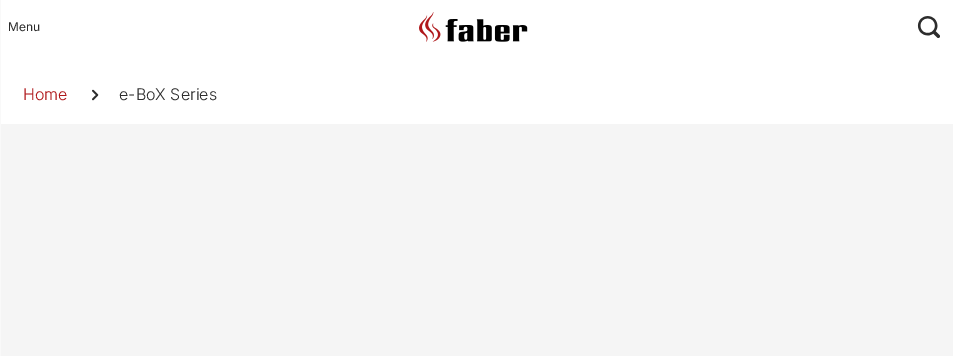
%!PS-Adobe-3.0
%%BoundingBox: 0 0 953 356
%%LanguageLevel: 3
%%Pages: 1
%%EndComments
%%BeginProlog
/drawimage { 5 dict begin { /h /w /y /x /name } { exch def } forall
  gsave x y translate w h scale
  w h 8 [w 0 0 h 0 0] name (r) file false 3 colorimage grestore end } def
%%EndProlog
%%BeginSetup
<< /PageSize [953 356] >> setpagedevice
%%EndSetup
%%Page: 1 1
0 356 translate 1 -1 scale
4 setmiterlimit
1 setgray
0 0 953 356 rectfill
0.976 setgray
0 0 1 356 rectfill
(images/1.raw) 419 12 109 30 drawimage
(images/2.raw) 917 16 23 22 drawimage
(images/3.raw) 92 89 7 12 drawimage
0.961 setgray
1 124 952 232 rectfill
/Inter-Regular [12 0 0 -12 0 0] selectfont
0.176 setgray
8 31 moveto (Menu) show
/Inter-Light [16 0 0 -16 0 0] selectfont
0.686 0.09 0.102 setrgbcolor
23 100 moveto (Home) show
0.176 setgray
119 100 moveto (e-BoX Series) show
showpage
%%EOF
